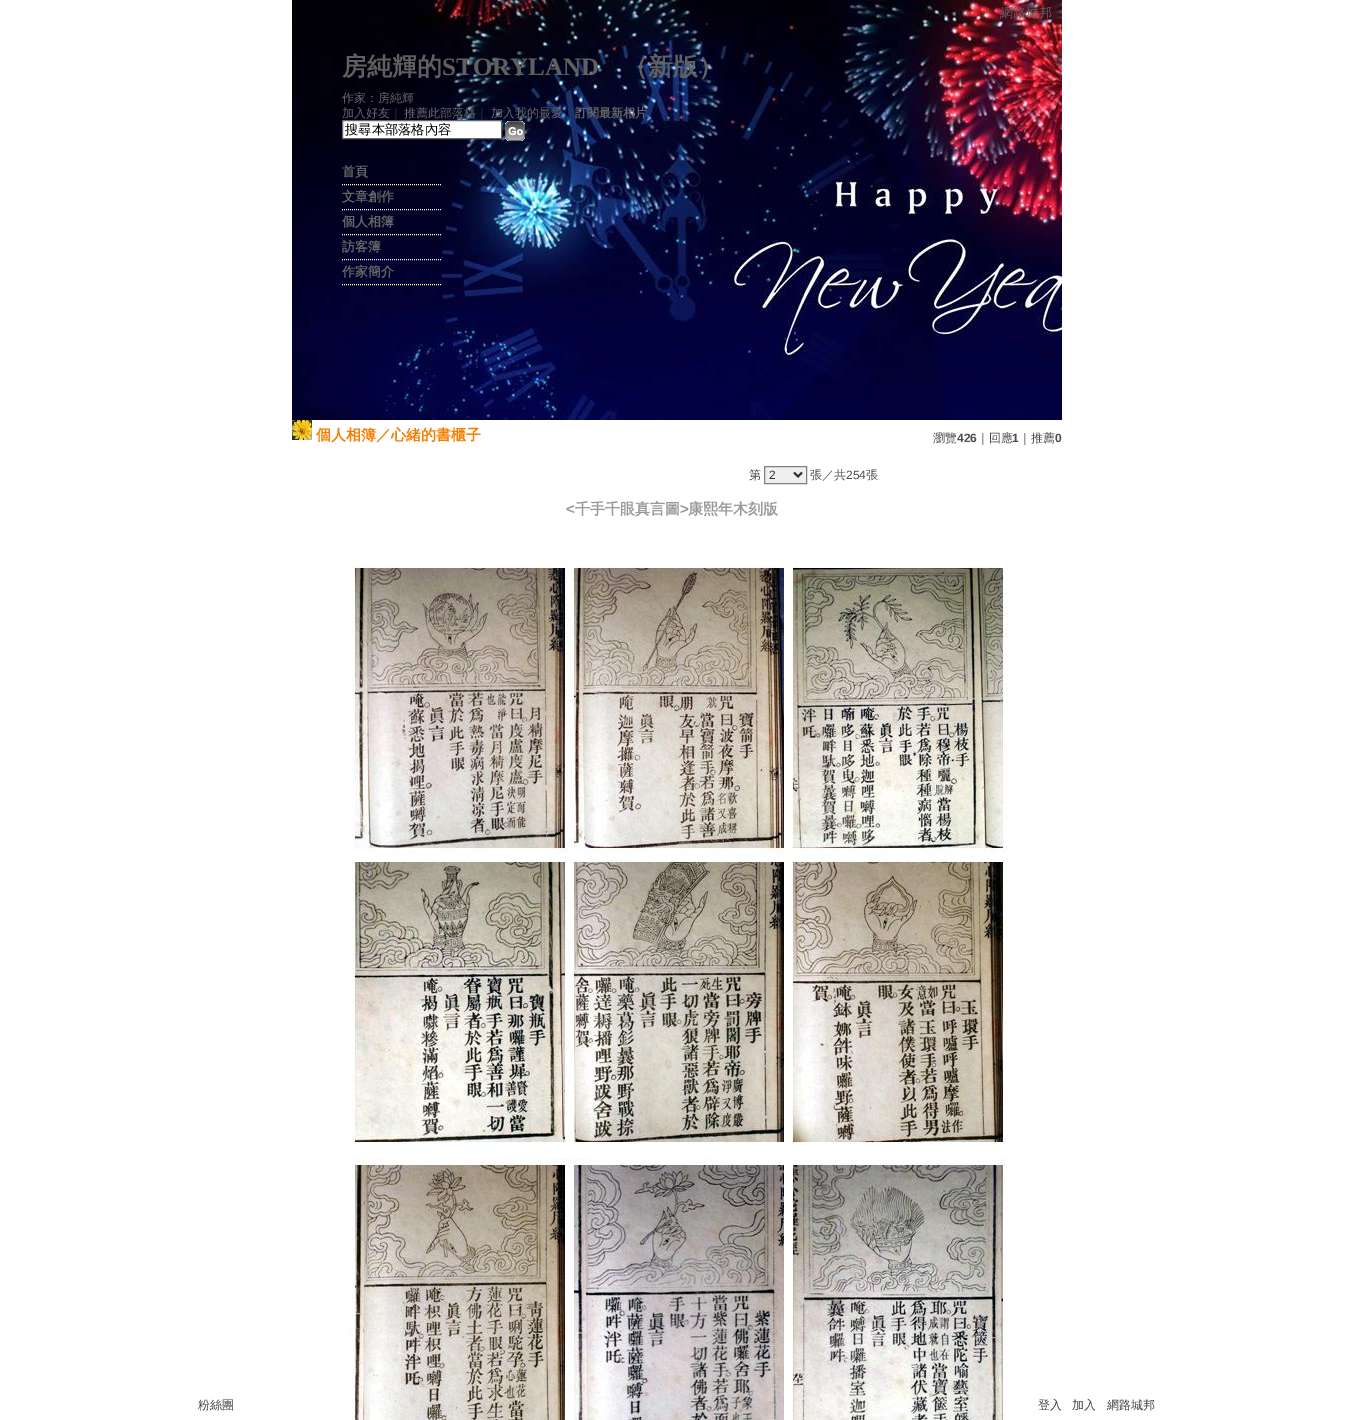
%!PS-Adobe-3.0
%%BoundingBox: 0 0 1353 1420
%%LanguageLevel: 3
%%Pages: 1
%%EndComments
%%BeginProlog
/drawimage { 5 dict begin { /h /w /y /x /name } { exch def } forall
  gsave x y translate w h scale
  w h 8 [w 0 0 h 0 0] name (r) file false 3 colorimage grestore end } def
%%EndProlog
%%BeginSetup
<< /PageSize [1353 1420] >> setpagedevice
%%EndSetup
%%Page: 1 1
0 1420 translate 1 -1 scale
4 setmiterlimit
1 setgray
0 0 1353 1420 rectfill
(images/1.raw) 292 0 770 420 drawimage
newpath 342.5 120.5 moveto 501.5 120.5 lineto 501.5 138.5 lineto 342.5 138.5 lineto closepath gsave fill grestore
0.4 setgray
stroke
(images/2.raw) 505 121 20 20 drawimage
1 setgray
[1 1] 0 setdash
newpath 342 184.5 moveto 442 184.5 lineto stroke
newpath 342 209.5 moveto 442 209.5 lineto stroke
newpath 342 234.5 moveto 442 234.5 lineto stroke
newpath 342 259.5 moveto 442 259.5 lineto stroke
newpath 342 284.5 moveto 442 284.5 lineto stroke
(images/3.raw) 292 420 20 20 drawimage
0.937 setgray
newpath 764.5 466.5 moveto 806.5 466.5 lineto 806.5 483.5 lineto 764.5 483.5 lineto closepath gsave fill grestore
0.502 setgray
[] 0 setdash
stroke
0.2 setgray
2 setlinewidth
newpath 794 472.5 moveto 798 476.5 lineto 802 472.5 lineto stroke
(images/4.raw) 345 558 663 862 drawimage
/WenQuanYiZenHei-Medium [13 0 0 -13 0 0] selectfont
0.4 setgray
1000 17 moveto (網路城邦) show
/WenQuanYiZenHei-Bold [25 0 0 -25 0 0] selectfont
0.376 setgray
342 75 moveto (房純輝的) show
/LiberationSerif-Bold [25 0 0 -25 0 0] selectfont
442 75 moveto (STORYLAND) show
/WenQuanYiZenHei-Bold [25 0 0 -25 0 0] selectfont
623 75 moveto (（新版）) show
/WenQuanYiZenHei-Medium [12 0 0 -12 0 0] selectfont
0.4 setgray
342 102 moveto (作家：房純輝) show
342 117 moveto (加入好友) show
0.2 setgray
390 117 moveto (｜) show
0.4 setgray
404 117 moveto (推薦此部落格) show
0.2 setgray
476 117 moveto (｜) show
0.4 setgray
491 117 moveto (加入我的最愛) show
0.2 setgray
563 117 moveto (｜) show
/WenQuanYiZenHei-Bold [12 0 0 -12 0 0] selectfont
0.4 setgray
575 117 moveto (訂閱最新相片) show
/WenQuanYiZenHei-Medium [13.25 0 0 -13.25 0 0] selectfont
0 setgray
345 134 moveto (搜尋本部落格內容) show
/WenQuanYiZenHei-Bold [13 0 0 -13 0 0] selectfont
0.4 setgray
342 176 moveto (首頁) show
342 201 moveto (文章創作) show
342 226 moveto (個人相簿) show
342 251 moveto (訪客簿) show
342 276 moveto (作家簡介) show
/WenQuanYiZenHei-Bold [15 0 0 -15 0 0] selectfont
0.957 0.494 0 setrgbcolor
316 440 moveto (個人相簿／心緒的書櫃子) show
/WenQuanYiZenHei-Medium [12 0 0 -12 0 0] selectfont
0.302 setgray
933 442 moveto (瀏覽) show
/LiberationSans-Bold [12 0 0 -12 0 0] selectfont
957 442 moveto (426) show
/WenQuanYiZenHei-Medium [12 0 0 -12 0 0] selectfont
977 442 moveto (｜回應) show
/LiberationSans-Bold [12 0 0 -12 0 0] selectfont
1012 442 moveto (1) show
/WenQuanYiZenHei-Medium [12 0 0 -12 0 0] selectfont
1019 442 moveto (｜推薦) show
/LiberationSans-Bold [12 0 0 -12 0 0] selectfont
1055 442 moveto (0) show
/WenQuanYiZenHei-Medium [12 0 0 -12 0 0] selectfont
749 479 moveto (第) show
/LiberationSans-Regular [12 0 0 -12 0 0] selectfont
0.2 setgray
769 479 moveto (2) show
/WenQuanYiZenHei-Medium [12 0 0 -12 0 0] selectfont
0.302 setgray
810 479 moveto (張／共) show
/LiberationSans-Regular [12 0 0 -12 0 0] selectfont
846 479 moveto (254) show
/WenQuanYiZenHei-Medium [12 0 0 -12 0 0] selectfont
866 479 moveto (張) show
/LiberationSans-Bold [15 0 0 -15 0 0] selectfont
0.6 setgray
566 514 moveto (<) show
/WenQuanYiZenHei-Bold [15 0 0 -15 0 0] selectfont
575 514 moveto (千手千眼真言圖) show
/LiberationSans-Bold [15 0 0 -15 0 0] selectfont
680 514 moveto (>) show
/WenQuanYiZenHei-Bold [15 0 0 -15 0 0] selectfont
688 514 moveto (康熙年木刻版) show
/WenQuanYiZenHei-Medium [12 0 0 -12 0 0] selectfont
0.267 setgray
198 1409 moveto (粉絲團) show
1038 1409 moveto (登入) show
1072 1409 moveto (加入) show
1107 1409 moveto (網路城邦) show
showpage
%%EOF
